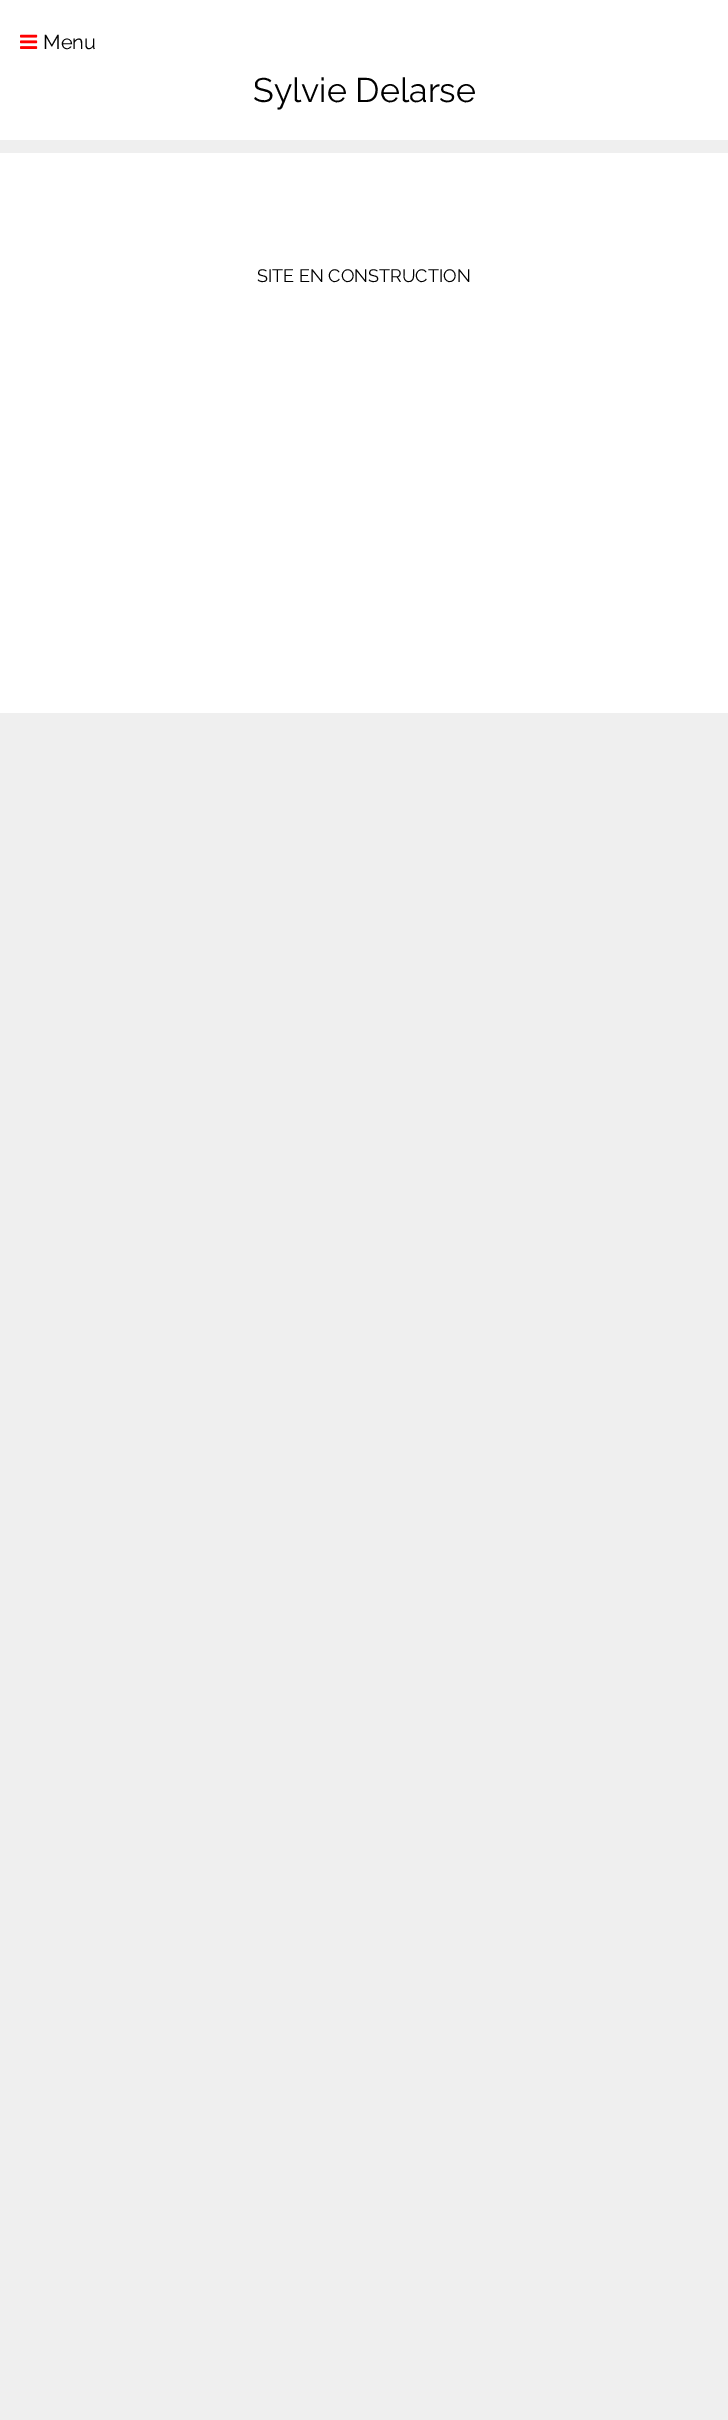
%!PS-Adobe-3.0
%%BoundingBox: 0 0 728 2420
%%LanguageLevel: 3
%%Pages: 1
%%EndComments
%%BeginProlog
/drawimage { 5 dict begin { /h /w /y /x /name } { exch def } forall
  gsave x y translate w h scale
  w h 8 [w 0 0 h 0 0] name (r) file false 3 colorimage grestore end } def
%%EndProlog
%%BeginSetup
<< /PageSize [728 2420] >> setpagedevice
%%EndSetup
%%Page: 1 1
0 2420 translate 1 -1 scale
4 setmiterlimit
0.937 setgray
0 0 728 2420 rectfill
1 setgray
0 0 728 140 rectfill
(images/1.raw) 20 34 18 15 drawimage
0 153 728 560 rectfill
/Raleway-Regular [20 0 0 -20 0 0] selectfont
0 setgray
43 49 moveto (Menu) show
/Raleway-Regular [34 0 0 -34 0 0] selectfont
253 102 moveto (Sylvie Delarse) show
/Raleway-Regular [18 0 0 -18 0 0] selectfont
257 282 moveto (SITE EN CONSTRUCTION) show
showpage
%%EOF
